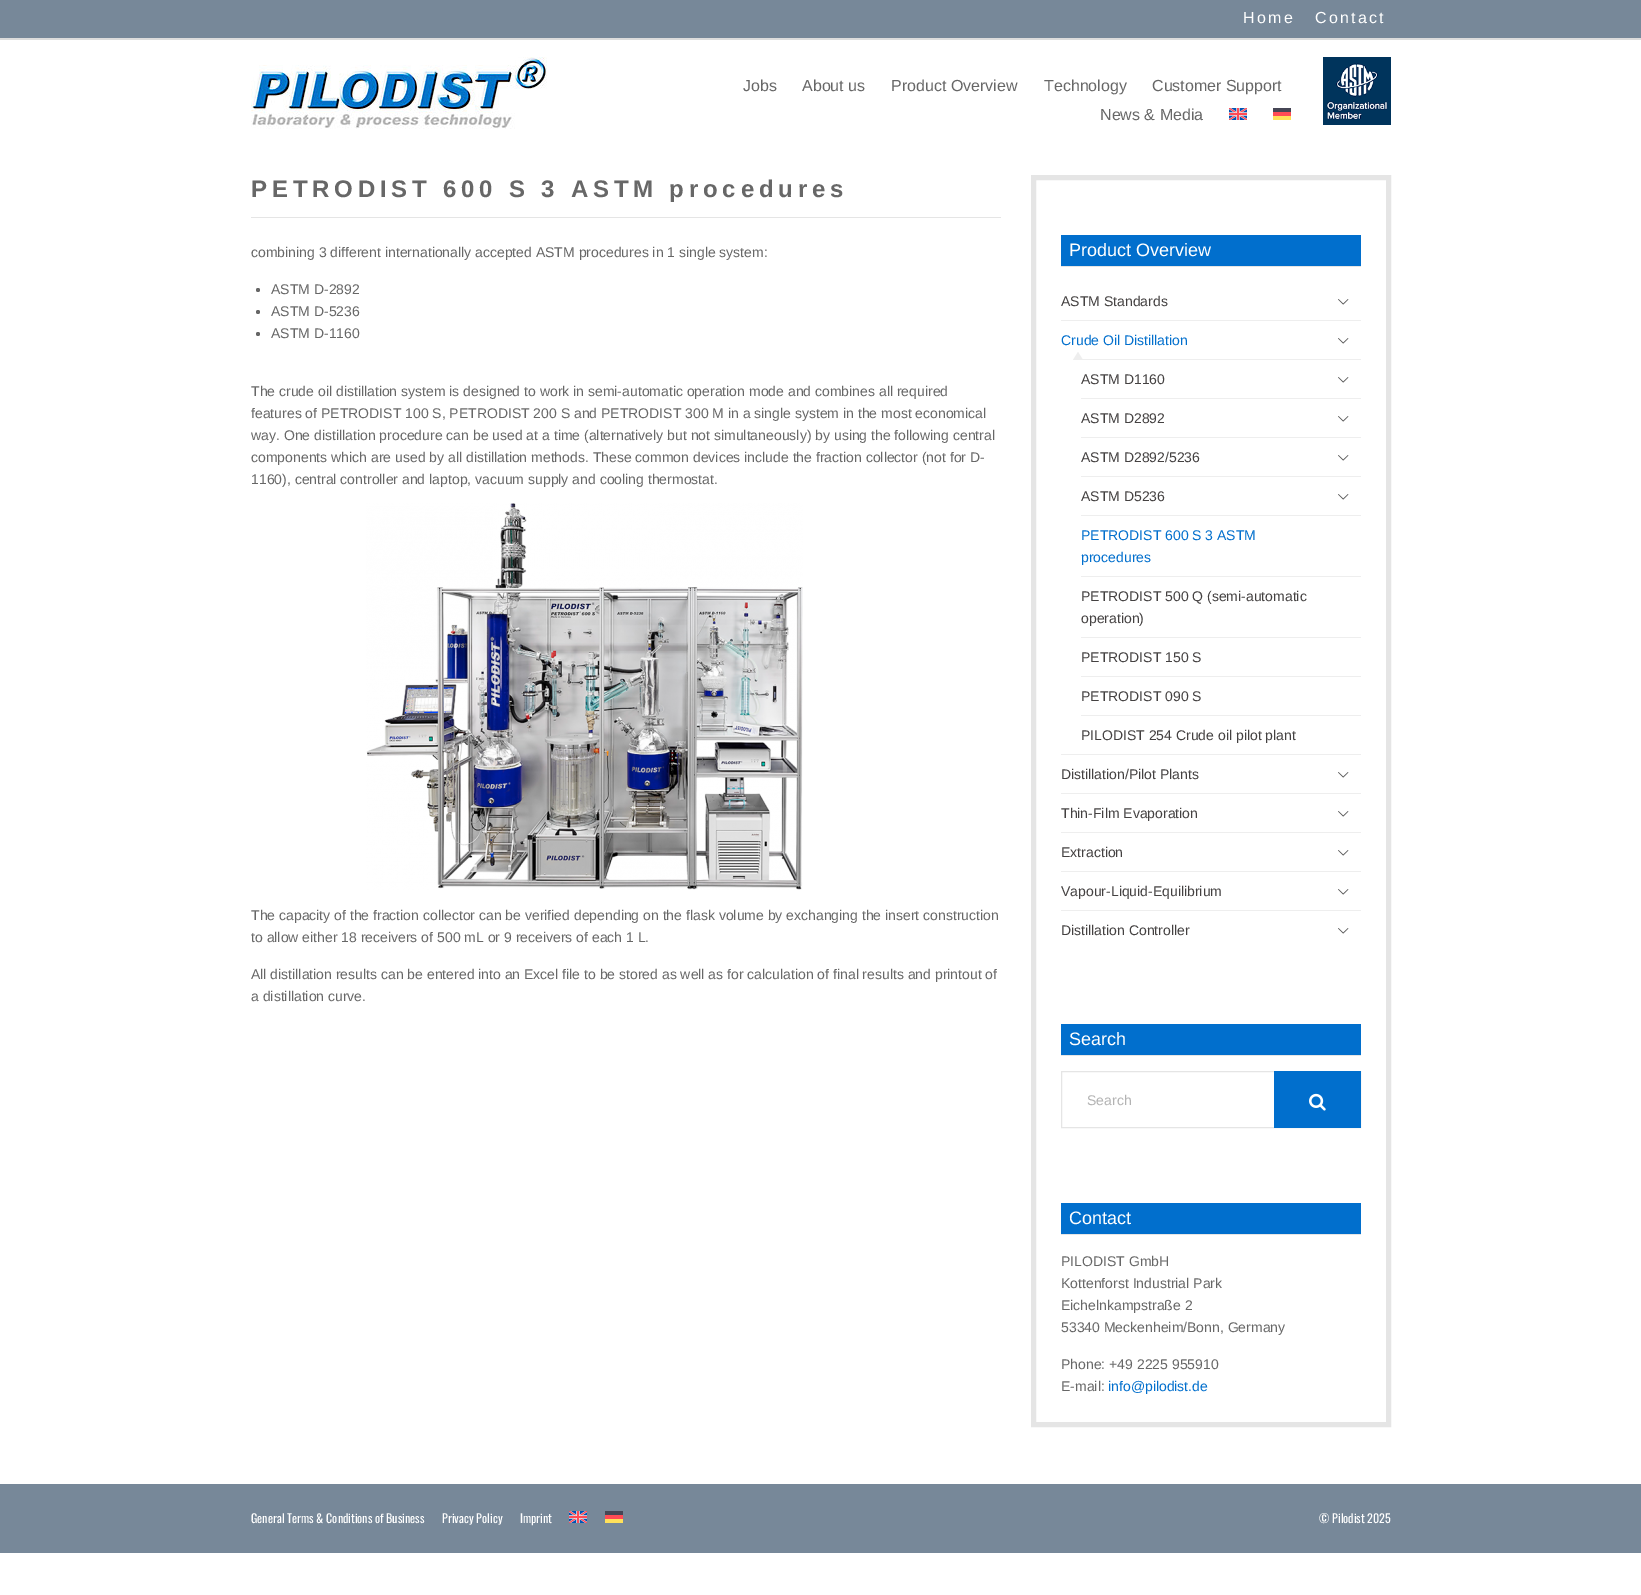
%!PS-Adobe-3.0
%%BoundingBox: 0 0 1641 1595
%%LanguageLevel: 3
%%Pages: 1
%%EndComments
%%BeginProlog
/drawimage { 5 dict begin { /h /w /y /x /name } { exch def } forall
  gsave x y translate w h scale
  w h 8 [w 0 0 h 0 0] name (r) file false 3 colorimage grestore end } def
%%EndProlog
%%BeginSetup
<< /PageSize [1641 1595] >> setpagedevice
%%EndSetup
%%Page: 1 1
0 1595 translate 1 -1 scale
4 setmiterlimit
1 setgray
0 0 1641 1595 rectfill
0.467 0.533 0.6 setrgbcolor
0 0 1641 38 rectfill
0.863 setgray
0 38 1641 2 rectfill
(images/1.raw) 251 57 296 72 drawimage
(images/2.raw) 1229 108 18 12 drawimage
0.275 0.275 0.333 setrgbcolor
1273 108 18 4 rectfill
1 0.294 0.333 setrgbcolor
1273 112 18 4 rectfill
1 0.882 0.353 setrgbcolor
1273 116 18 4 rectfill
(images/3.raw) 1323 57 68 68 drawimage
0.898 setgray
251 217 750 1 rectfill
0.404 setgray
newpath 258 290 2 0 360 arc closepath fill
newpath 258 312 2 0 360 arc closepath fill
newpath 258 334 2 0 360 arc closepath fill
(images/4.raw) 366 503 437 387 drawimage
0.898 setgray
5 setlinewidth
1033.5 177.5 355 1247 rectstroke
0.004 0.435 0.804 setrgbcolor
1061 235 300 31 rectfill
0.898 setgray
1061 266 300 1 rectfill
0.933 setgray
1061 320 300 1 rectfill
(images/5.raw) 1338 299 11 6 drawimage
1061 754 300 1 rectfill
(images/5.raw) 1338 338 11 6 drawimage
1081 359 280 1 rectfill
1081 398 280 1 rectfill
newpath 1083 360 moveto 1073 360 lineto 1078 352 lineto closepath fill
(images/5.raw) 1338 377 11 6 drawimage
1081 437 280 1 rectfill
(images/5.raw) 1338 416 11 6 drawimage
1081 476 280 1 rectfill
(images/5.raw) 1338 455 11 6 drawimage
1081 515 280 1 rectfill
(images/5.raw) 1338 494 11 6 drawimage
1081 576 280 1 rectfill
1081 637 280 1 rectfill
1081 676 280 1 rectfill
1081 715 280 1 rectfill
1061 793 300 1 rectfill
(images/5.raw) 1338 772 11 6 drawimage
1061 832 300 1 rectfill
(images/5.raw) 1338 811 11 6 drawimage
1061 871 300 1 rectfill
(images/5.raw) 1338 850 11 6 drawimage
1061 910 300 1 rectfill
(images/5.raw) 1338 889 11 6 drawimage
(images/5.raw) 1338 928 11 6 drawimage
0.004 0.435 0.804 setrgbcolor
1061 1024 300 31 rectfill
0.898 setgray
1061 1055 300 1 rectfill
1 setlinewidth
1061.5 1071.5 299 56 rectstroke
0.004 0.435 0.804 setrgbcolor
1274 1071 87 57 rectfill
(images/6.raw) 1309 1093 17 18 drawimage
1061 1203 300 31 rectfill
0.898 setgray
1061 1234 300 1 rectfill
0.467 0.533 0.6 setrgbcolor
0 1484 1641 69 rectfill
(images/2.raw) 569 1511 18 12 drawimage
1 0.294 0.333 setrgbcolor
605 1515 18 4 rectfill
1 0.882 0.353 setrgbcolor
605 1519 18 4 rectfill
0.275 0.275 0.333 setrgbcolor
605 1511 18 4 rectfill
/LiberationSans-Regular [16 0 0 -16 0 0] selectfont
1 setgray
1243 23 moveto 2.25 0 (Home) ashow
1315 23 moveto 2.25 0 (Contact) ashow
0.404 setgray
743 91 moveto (Jobs) show
802 91 moveto (About us) show
891 91 moveto (Product Overview) show
1044 91 moveto (Technology) show
1152 91 moveto (Customer Support) show
1100 120 moveto (News & Media) show
/LiberationSans-Bold [24 0 0 -24 0 0] selectfont
251 197 moveto 4.8 0 (PETRODIST 600 S 3 ASTM procedures) ashow
/LiberationSans-Regular [14 0 0 -14 0 0] selectfont
251 257 moveto (combining 3 different internationally accepted ASTM procedures in 1 single system:) show
271 294 moveto (ASTM D-2892) show
271 316 moveto (ASTM D-5236) show
271 338 moveto (ASTM D-1160) show
251 396 moveto (The crude oil distillation system is designed to work in semi-automatic operation mode and combines all required) show
251 418 moveto (features of PETRODIST 100 S, PETRODIST 200 S and PETRODIST 300 M in a single system in the most economical) show
251 440 moveto (way. One distillation procedure can be used at a time \(alternatively but not simultaneously\) by using the following central) show
251 462 moveto (components which are used by all distillation methods. These common devices include the fraction collector \(not for D-) show
251 484 moveto (1160\), central controller and laptop, vacuum supply and cooling thermostat.) show
251 920 moveto (The capacity of the fraction collector can be verified depending on the flask volume by exchanging the insert construction) show
251 942 moveto (to allow either 18 receivers of 500 mL or 9 receivers of each 1 L.) show
251 979 moveto (All distillation results can be entered into an Excel file to be stored as well as for calculation of final results and printout of) show
251 1001 moveto (a distillation curve.) show
/LiberationSans-Regular [18 0 0 -18 0 0] selectfont
1 setgray
1069 256 moveto (Product Overview) show
/LiberationSans-Regular [14 0 0 -14 0 0] selectfont
0.267 0.255 0.255 setrgbcolor
1061 306 moveto (ASTM Standards) show
0.004 0.435 0.804 setrgbcolor
1061 345 moveto (Crude Oil Distillation) show
0.267 0.255 0.255 setrgbcolor
1081 384 moveto (ASTM D1160) show
1081 423 moveto (ASTM D2892) show
1081 462 moveto (ASTM D2892/5236) show
1081 501 moveto (ASTM D5236) show
0.004 0.435 0.804 setrgbcolor
1081 540 moveto (PETRODIST 600 S 3 ASTM) show
1081 562 moveto (procedures) show
0.267 0.255 0.255 setrgbcolor
1081 601 moveto (PETRODIST 500 Q \(semi-automatic) show
1081 623 moveto (operation\)) show
1081 662 moveto (PETRODIST 150 S) show
1081 701 moveto (PETRODIST 090 S) show
1081 740 moveto (PILODIST 254 Crude oil pilot plant) show
1061 779 moveto (Distillation/Pilot Plants) show
1061 818 moveto (Thin-Film Evaporation) show
1061 857 moveto (Extraction) show
1061 896 moveto (Vapour-Liquid-Equilibrium) show
1061 935 moveto (Distillation Controller) show
/LiberationSans-Regular [18 0 0 -18 0 0] selectfont
1 setgray
1069 1045 moveto (Search) show
/LiberationSans-Regular [14 0 0 -14 0 0] selectfont
0.702 setgray
1087 1105 moveto (Search) show
/LiberationSans-Regular [18 0 0 -18 0 0] selectfont
1 setgray
1069 1224 moveto (Contact) show
/LiberationSans-Regular [14 0 0 -14 0 0] selectfont
0.404 setgray
1061 1266 moveto (PILODIST GmbH) show
1061 1288 moveto (Kottenforst Industrial Park) show
1061 1310 moveto (Eichelnkampstraße 2) show
1061 1332 moveto (53340 Meckenheim/Bonn, Germany) show
1061 1369 moveto (Phone: +49 2225 955910) show
1061 1391 moveto (E-mail:) show
0.004 0.435 0.804 setrgbcolor
1108 1391 moveto (info@pilodist.de) show
/Oswald-Regular [12 0 0 -12 0 0] selectfont
1 setgray
251 1523 moveto (General Terms & Conditions of Business) show
442 1523 moveto (Privacy Policy) show
520 1523 moveto (Imprint) show
1319 1523 moveto (© Pilodist 2025) show
showpage
%%EOF
